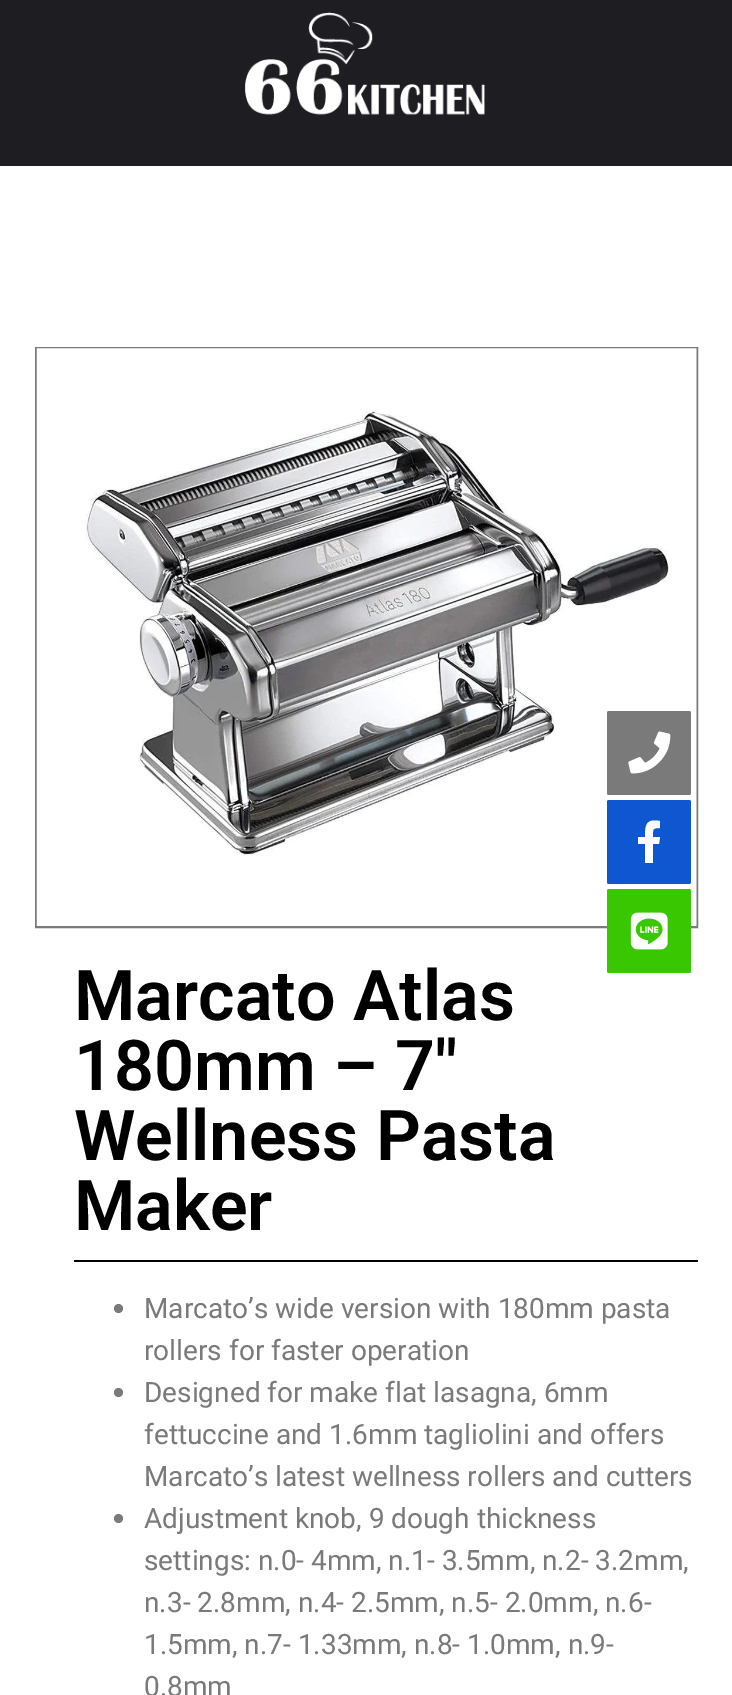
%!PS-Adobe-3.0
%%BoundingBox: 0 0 732 1695
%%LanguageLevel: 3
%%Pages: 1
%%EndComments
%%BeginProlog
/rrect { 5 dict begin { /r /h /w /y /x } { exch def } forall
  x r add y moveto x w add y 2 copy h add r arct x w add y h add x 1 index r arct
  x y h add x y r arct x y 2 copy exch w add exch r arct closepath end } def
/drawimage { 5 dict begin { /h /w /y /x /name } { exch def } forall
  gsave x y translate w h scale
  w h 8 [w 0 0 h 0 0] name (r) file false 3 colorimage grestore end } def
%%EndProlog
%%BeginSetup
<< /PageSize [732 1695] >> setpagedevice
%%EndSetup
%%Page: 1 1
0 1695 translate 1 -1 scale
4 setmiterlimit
1 setgray
0 0 732 1695 rectfill
0.118 0.114 0.129 setrgbcolor
0 0 732 166 rectfill
(images/1.raw) 245 12 240 103 drawimage
0.478 setgray
2 setlinewidth
36 348 661 579 rectstroke
(images/4.raw) 36 348 661 578 drawimage
607 711 84 84 2 rrect fill
(images/2.raw) 628 731 43 43 drawimage
0.059 0.341 0.816 setrgbcolor
607 800 84 84 2 rrect fill
1 setgray
newpath 659 844 moveto 653 844 lineto 653 863 lineto 645 863 lineto 645 844 lineto 638 844 lineto 638 837 lineto 645 837 lineto 645 823 647 819 660 821 curveto 660 828 lineto 652 828 653 829 653 837 curveto 660 837 lineto closepath fill
0.22 0.78 0.004 setrgbcolor
607 889 84 84 2 rrect fill
(images/3.raw) 630 912 38 38 drawimage
0 setgray
74 1260 624 2 rectfill
0.478 setgray
newpath 118.5 1308.5 4.5 0 360 arc closepath fill
newpath 118.5 1392.5 4.5 0 360 arc closepath fill
newpath 118.5 1518.5 4.5 0 360 arc closepath fill
/Roboto-SemiBold [70 0 0 -70 0 0] selectfont
0 setgray
74 1020 moveto (Marcato Atlas) show
74 1090 moveto (180mm – 7″) show
74 1160 moveto (Wellness Pasta) show
74 1230 moveto (Maker) show
/Roboto-Regular [28 0 0 -28 0 0] selectfont
0.478 setgray
144 1318 moveto (Marcato’s wide version with 180mm pasta) show
144 1360 moveto (rollers for faster operation) show
144 1402 moveto (Designed for make flat lasagna, 6mm) show
144 1444 moveto (fettuccine and 1.6mm tagliolini and offers) show
144 1486 moveto (Marcato’s latest wellness rollers and cutters) show
144 1528 moveto (Adjustment knob, 9 dough thickness) show
144 1570 moveto (settings: n.0- 4mm, n.1- 3.5mm, n.2- 3.2mm,) show
144 1612 moveto (n.3- 2.8mm, n.4- 2.5mm, n.5- 2.0mm, n.6-) show
144 1654 moveto (1.5mm, n.7- 1.33mm, n.8- 1.0mm, n.9-) show
144 1696 moveto (0.8mm) show
showpage
%%EOF
